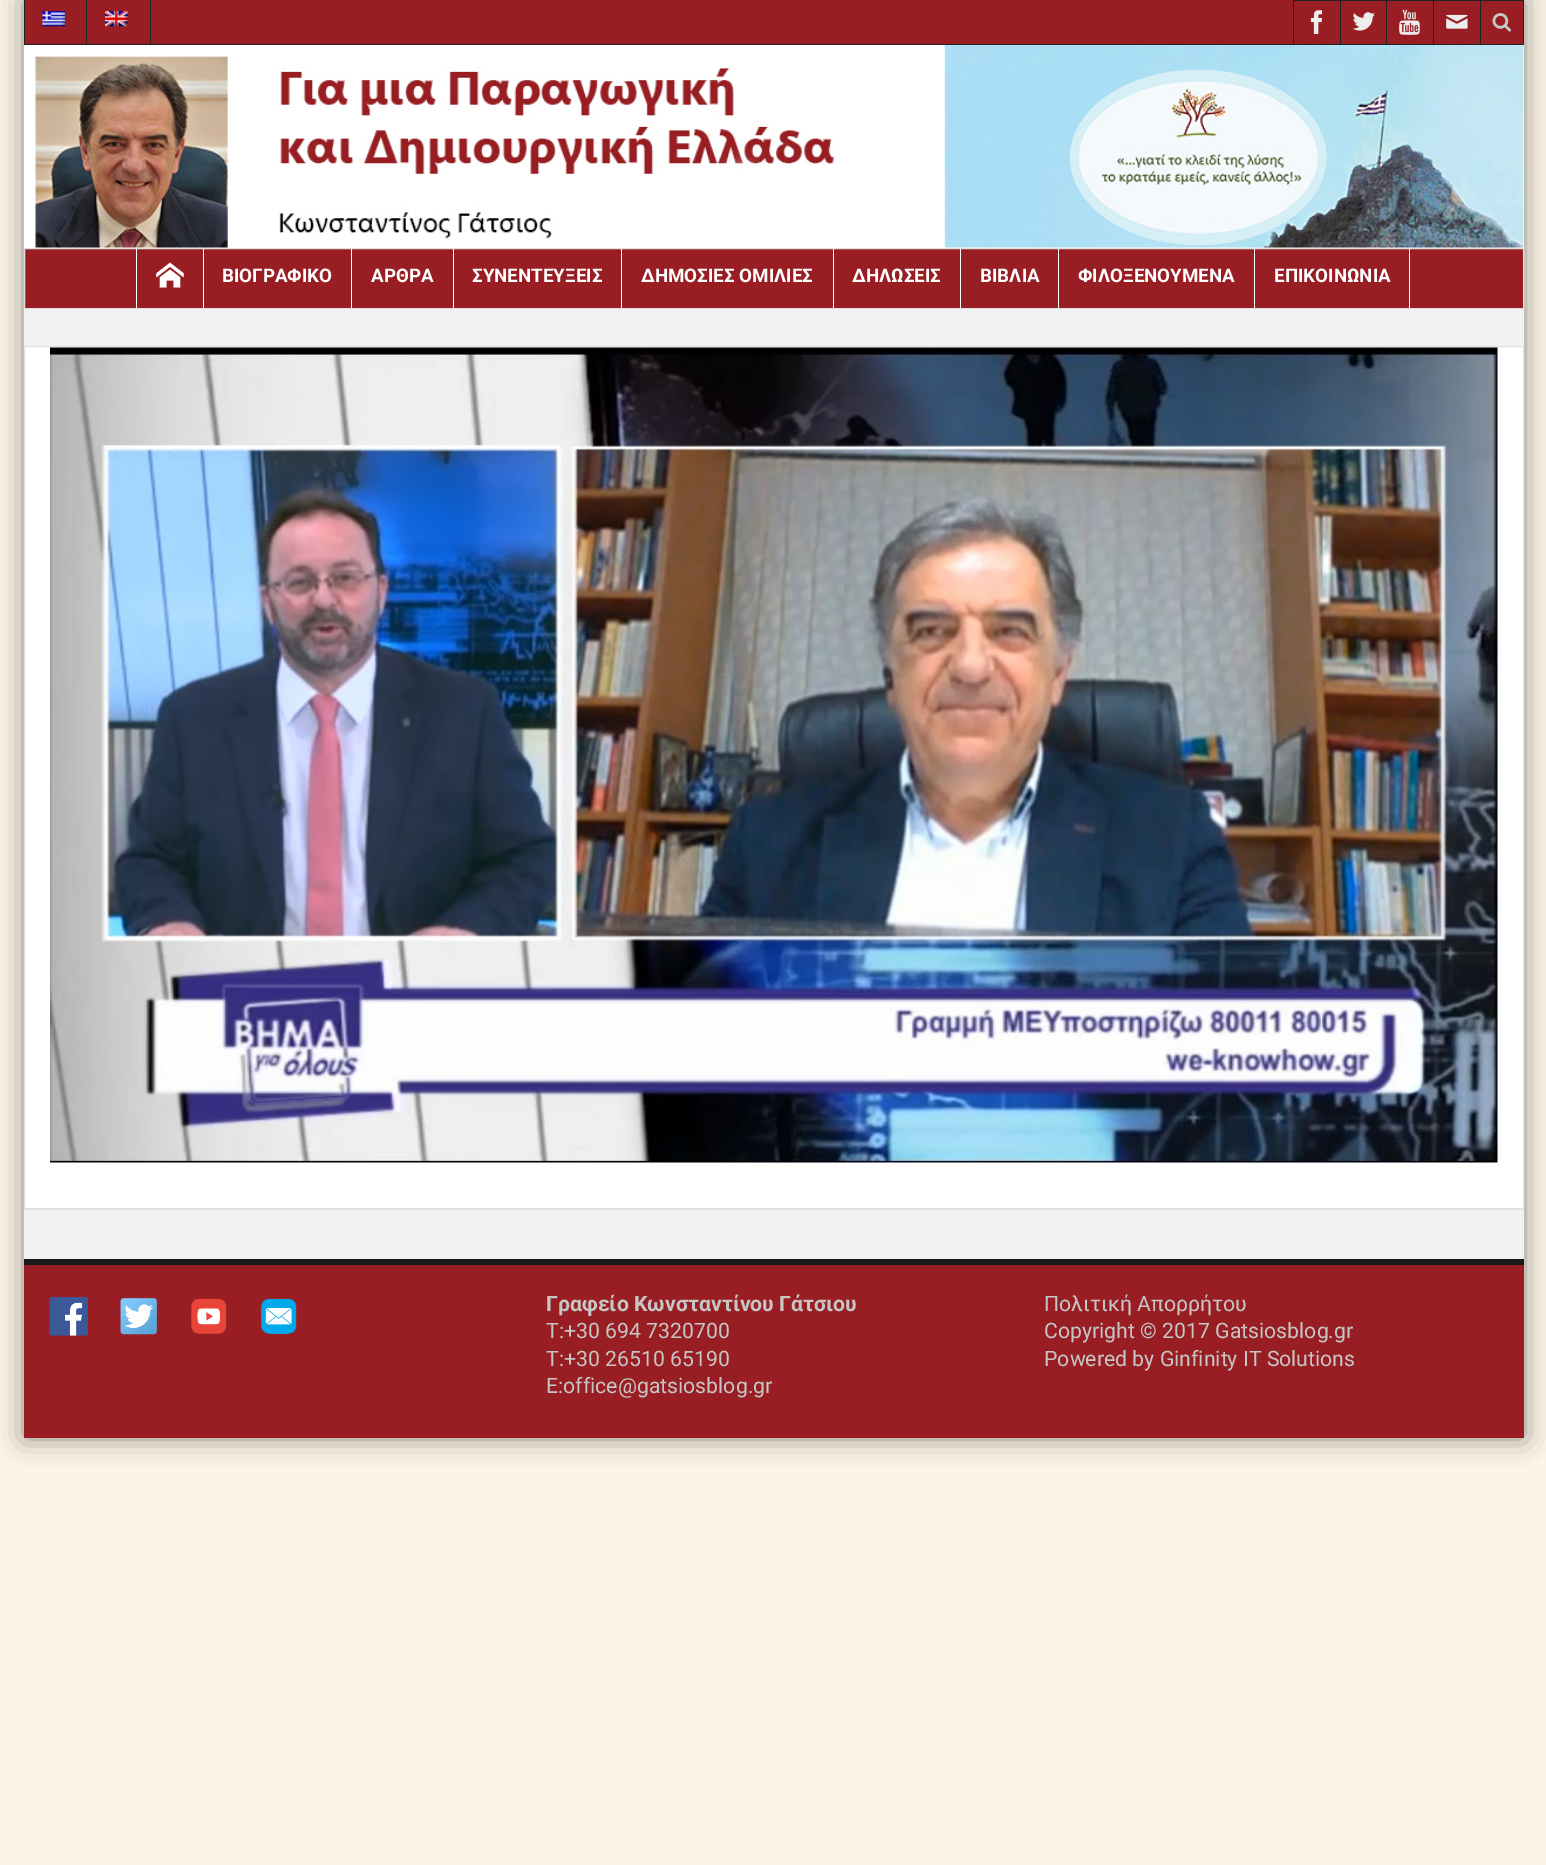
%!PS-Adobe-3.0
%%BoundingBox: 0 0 1546 1865
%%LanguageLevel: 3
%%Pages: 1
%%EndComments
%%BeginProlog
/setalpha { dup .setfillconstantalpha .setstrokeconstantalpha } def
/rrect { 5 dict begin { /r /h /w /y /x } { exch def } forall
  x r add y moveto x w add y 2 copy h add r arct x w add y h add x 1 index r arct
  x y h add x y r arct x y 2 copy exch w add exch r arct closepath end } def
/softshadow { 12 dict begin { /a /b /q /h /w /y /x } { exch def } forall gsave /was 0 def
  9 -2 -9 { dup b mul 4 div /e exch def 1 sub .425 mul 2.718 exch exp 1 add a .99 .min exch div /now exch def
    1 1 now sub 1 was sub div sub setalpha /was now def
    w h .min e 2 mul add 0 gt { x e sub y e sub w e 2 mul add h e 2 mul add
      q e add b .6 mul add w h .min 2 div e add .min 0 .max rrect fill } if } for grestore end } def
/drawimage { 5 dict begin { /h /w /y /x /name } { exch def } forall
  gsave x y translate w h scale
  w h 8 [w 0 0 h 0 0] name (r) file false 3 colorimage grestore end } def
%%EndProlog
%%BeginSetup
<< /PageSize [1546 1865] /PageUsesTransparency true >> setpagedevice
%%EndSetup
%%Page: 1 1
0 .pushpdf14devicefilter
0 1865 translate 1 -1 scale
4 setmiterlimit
0.992 0.957 0.902 setrgbcolor
0 0 1546 1865 rectfill
0 setgray
24 0 1500 1438 0 13 0.44 softshadow
0.949 setgray
24 309 1500 950 rectfill
0.596 0.118 0.137 setrgbcolor
25 0 1498 44 rectfill
0.133 setgray
24 44 1500 1 rectfill
86 0 1 44 rectfill
24 0 1 44 rectfill
(images/1.raw) 42 11 23 16 drawimage
150 0 1 44 rectfill
(images/2.raw) 105 11 23 16 drawimage
1293 0 231 1 rectfill
1293 0 1 44 rectfill
(images/3.raw) 1310 10 13 24 drawimage
1340 0 1 44 rectfill
(images/4.raw) 1352 12 23 19 drawimage
1386 0 1 44 rectfill
(images/5.raw) 1399 9 21 26 drawimage
1433 0 1 44 rectfill
(images/6.raw) 1446 14 22 15 drawimage
1523 0 1 44 rectfill
1480 0 1 44 rectfill
(images/7.raw) 1492 13 19 19 drawimage
1 setgray
24 45 1500 203 rectfill
(images/8.raw) 35 45 1489 203 drawimage
0.596 0.118 0.137 setrgbcolor
newpath 24.5 248.5 moveto 1523.5 248.5 lineto 1523.5 308.5 lineto 24.5 308.5 lineto closepath gsave fill grestore
0.882 setgray
stroke
1 setgray
203 249 1 59 rectfill
136 249 1 59 rectfill
(images/9.raw) 156 262 28 26 drawimage
351 249 1 59 rectfill
453 249 1 59 rectfill
621 249 1 59 rectfill
833 249 1 59 rectfill
960 249 1 59 rectfill
1058 249 1 59 rectfill
1254 249 1 59 rectfill
1409 249 1 59 rectfill
0.898 setgray
newpath 24 1209 moveto 24 1210 lineto 1524 1210 lineto 1524 348 lineto 1524 1209 lineto closepath fill
1 setgray
newpath 24.5 346.5 moveto 1523.5 346.5 lineto 1523.5 1208.5 lineto 24.5 1208.5 lineto closepath gsave fill grestore
0.882 setgray
stroke
(images/10.raw) 50 347 1448 816 drawimage
0.596 0.118 0.137 setrgbcolor
24 1265 1500 173 rectfill
0.102 setgray
24 1259 1500 6 rectfill
(images/11.raw) 49 1297 39 39 drawimage
(images/12.raw) 120 1298 37 37 drawimage
(images/13.raw) 191 1298 36 36 drawimage
(images/14.raw) 261 1298 36 36 drawimage
/Roboto-Bold [18.75 0 0 -18.75 0 0] selectfont
1 setgray
222 282 moveto (ΒΙΟΓΡΑΦΙΚΟ) show
371 282 moveto (ΑΡΘΡΑ) show
472 282 moveto (ΣΥΝΕΝΤΕΥΞΕΙΣ) show
641 282 moveto (ΔΗΜΟΣΙΕΣ ΟΜΙΛΙΕΣ) show
852 282 moveto (ΔΗΛΩΣΕΙΣ) show
980 282 moveto (ΒΙΒΛΙΑ) show
1078 282 moveto (ΦΙΛΟΞΕΝΟΥΜΕΝΑ) show
1274 282 moveto (ΕΠΙΚΟΙΝΩΝΙΑ) show
/Roboto-Bold [21.25 0 0 -21.25 0 0] selectfont
0.776 setgray
546 1311 moveto (Γραφείο Κωνσταντίνου Γάτσιου) show
/Roboto-Regular [21.25 0 0 -21.25 0 0] selectfont
546 1338 moveto (Τ:+30 694 7320700) show
546 1366 moveto (T:+30 26510 65190) show
546 1393 moveto (E:office@gatsiosblog.gr) show
1044 1311 moveto (Πολιτική Απορρήτου) show
1044 1338 moveto (Copyright © 2017 Gatsiosblog.gr) show
1044 1366 moveto (Powered by Ginfinity IT Solutions) show
.poppdf14devicefilter showpage
%%EOF
